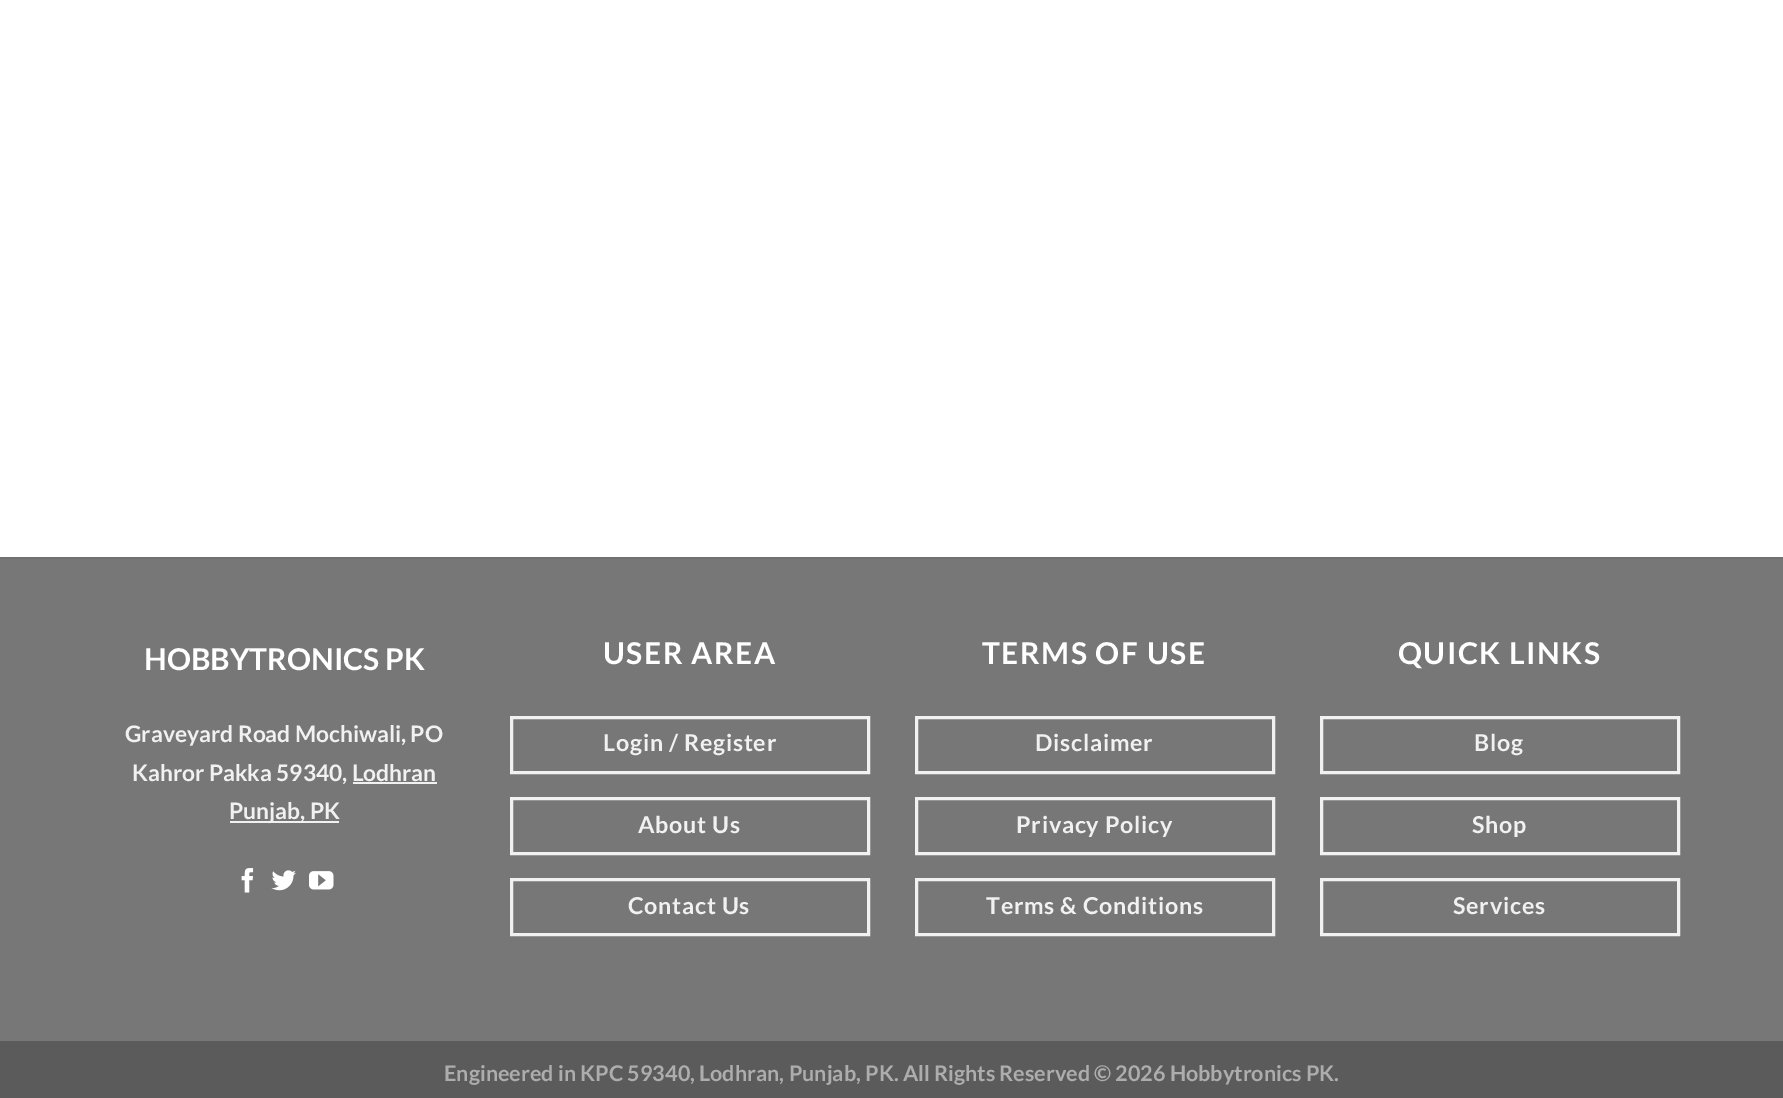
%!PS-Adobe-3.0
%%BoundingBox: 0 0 1783 1098
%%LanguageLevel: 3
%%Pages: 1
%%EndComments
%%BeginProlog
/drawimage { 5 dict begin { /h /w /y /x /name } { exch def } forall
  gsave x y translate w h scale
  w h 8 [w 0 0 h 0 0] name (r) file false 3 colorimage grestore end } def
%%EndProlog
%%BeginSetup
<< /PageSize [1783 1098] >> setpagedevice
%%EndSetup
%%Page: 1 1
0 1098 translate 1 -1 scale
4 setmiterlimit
1 setgray
0 0 1783 1098 rectfill
0.467 setgray
0 559 1783 482 rectfill
0.443 setgray
0 557 1783 2 rectfill
0.945 setgray
353 782 84 2 rectfill
230 821 109 2 rectfill
(images/1.raw) 241 868 13 25 drawimage
(images/2.raw) 271 870 25 21 drawimage
(images/3.raw) 309 871 25 19 drawimage
3 setlinewidth
511.5 717.5 357 55 rectstroke
511.5 798.5 357 55 rectstroke
511.5 879.5 357 55 rectstroke
916.5 717.5 357 55 rectstroke
916.5 798.5 357 55 rectstroke
916.5 879.5 357 55 rectstroke
1321.5 717.5 357 55 rectstroke
1321.5 798.5 357 55 rectstroke
1321.5 879.5 357 55 rectstroke
0.357 setgray
0 1041 1783 57 rectfill
/Lato-Bold [30 0 0 -30 0 0] selectfont
1 setgray
144 670 moveto (HOBBYTRONICS PK) show
/Lato-Bold [22.75 0 0 -22.75 0 0] selectfont
0.945 setgray
125 742 moveto (Graveyard Road Mochiwali, PO) show
132 781 moveto (Kahror Pakka 59340, Lodhran) show
229 819 moveto (Punjab, PK) show
/Lato-Bold [30 0 0 -30 0 0] selectfont
1 setgray
603 664 moveto 1.5 0 (USER AREA) ashow
/Lato-Bold [23.25 0 0 -23.25 0 0] selectfont
0.945 setgray
603 751 moveto 0.75 0 (Login / Register) ashow
638 833 moveto 0.75 0 (About Us) ashow
628 914 moveto 0.75 0 (Contact Us) ashow
/Lato-Bold [30 0 0 -30 0 0] selectfont
1 setgray
982 664 moveto 1.5 0 (TERMS OF USE) ashow
/Lato-Bold [23.25 0 0 -23.25 0 0] selectfont
0.945 setgray
1035 751 moveto 0.75 0 (Disclaimer) ashow
1016 833 moveto 0.75 0 (Privacy Policy) ashow
986 914 moveto 0.75 0 (Terms & Conditions) ashow
/Lato-Bold [30 0 0 -30 0 0] selectfont
1 setgray
1398 664 moveto 1.5 0 (QUICK LINKS) ashow
/Lato-Bold [23.25 0 0 -23.25 0 0] selectfont
0.945 setgray
1474 751 moveto 0.75 0 (Blog) ashow
1472 833 moveto 0.75 0 (Shop) ashow
1453 914 moveto 0.75 0 (Services) ashow
/Lato-Bold [21.6 0 0 -21.6 0 0] selectfont
0.678 setgray
444 1081 moveto (Engineered in KPC 59340, Lodhran, Punjab, PK. All Rights Reserved) show
1094 1081 moveto (© 2026 Hobbytronics PK.) show
showpage
%%EOF
